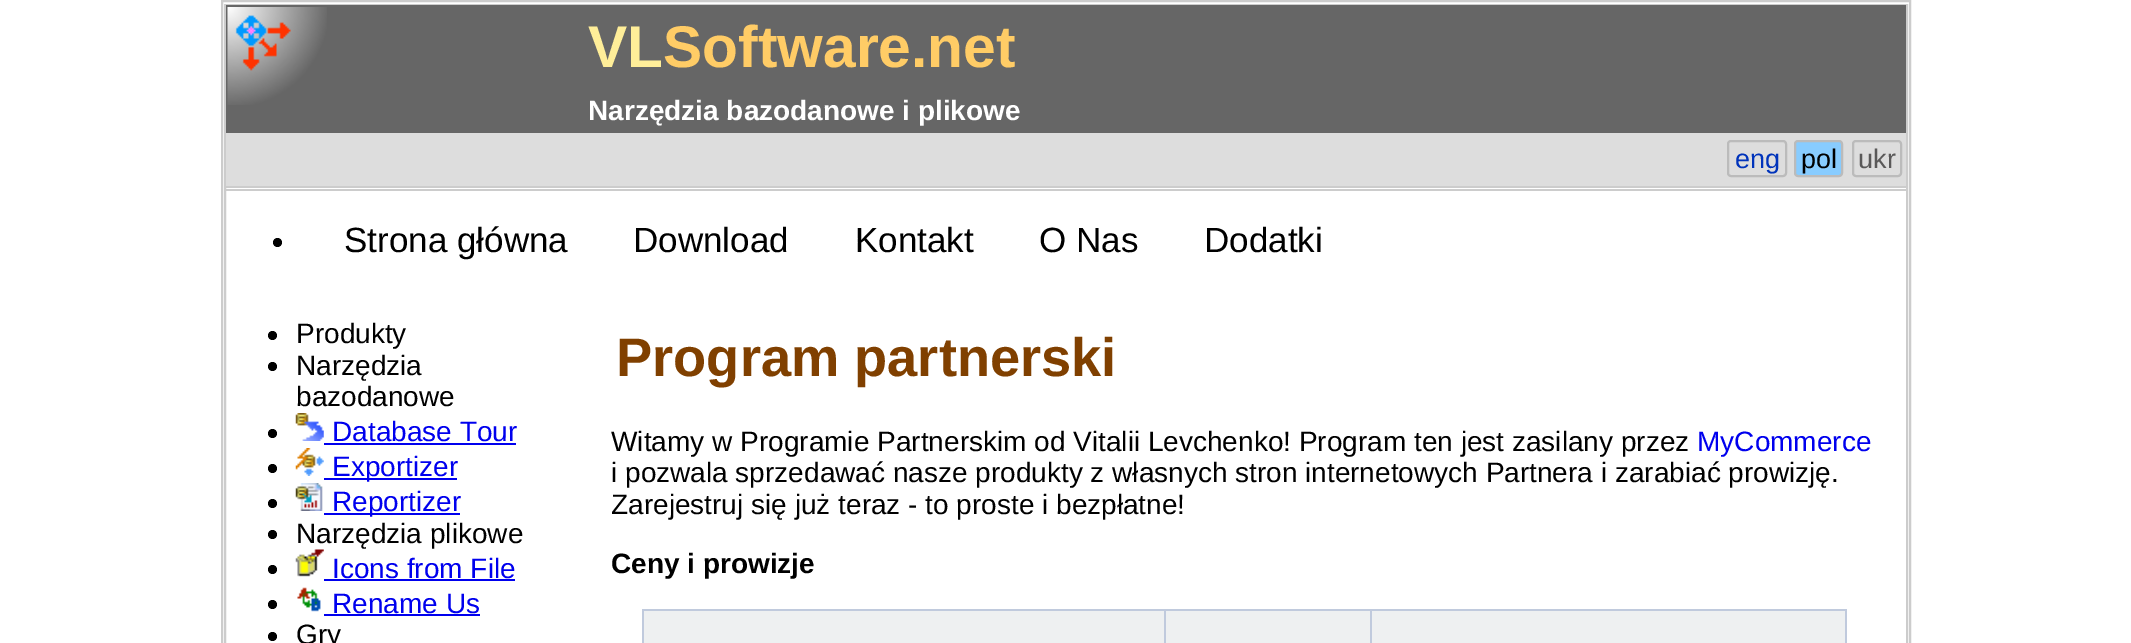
%!PS-Adobe-3.0
%%BoundingBox: 0 0 2131 643
%%LanguageLevel: 3
%%Pages: 1
%%EndComments
%%BeginProlog
/rrect { 5 dict begin { /r /h /w /y /x } { exch def } forall
  x r add y moveto x w add y 2 copy h add r arct x w add y h add x 1 index r arct
  x y h add x y r arct x y 2 copy exch w add exch r arct closepath end } def
/drawimage { 5 dict begin { /h /w /y /x /name } { exch def } forall
  gsave x y translate w h scale
  w h 8 [w 0 0 h 0 0] name (r) file false 3 colorimage grestore end } def
%%EndProlog
%%BeginSetup
<< /PageSize [2131 643] >> setpagedevice
%%EndSetup
%%Page: 1 1
0 643 translate 1 -1 scale
4 setmiterlimit
1 setgray
0 0 2131 643 rectfill
0.8 setgray
2 setlinewidth
222 1 1688 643 rectstroke
225 5 1682 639 rectstroke
226 186 1680 2 rectfill
226 189 1680 2 rectfill
0.4 setgray
226 5 1680 128 rectfill
(images/1.raw) 227 7 100 98 drawimage
0.867 setgray
226 133 1680 53 rectfill
0.733 setgray
1728 141 58 35 3 rrect stroke
0.533 0.8 1 setrgbcolor
1795 141 47 35 3 rrect gsave fill grestore
0.733 setgray
stroke
1853 141 48 35 3 rrect stroke
0 setgray
newpath 277.5 242.5 4.5 0 360 arc closepath fill
newpath 272.5 335.5 4.5 0 360 arc closepath fill
newpath 272.5 366.5 4.5 0 360 arc closepath fill
newpath 272.5 433.5 4.5 0 360 arc closepath fill
(images/2.raw) 295 413 29 28 drawimage
0 0 0.933 setrgbcolor
324 443 192 2 rectfill
0 setgray
newpath 272.5 468.5 4.5 0 360 arc closepath fill
(images/3.raw) 295 448 29 28 drawimage
0 0 0.933 setrgbcolor
324 478 133 2 rectfill
0 setgray
newpath 272.5 503.5 4.5 0 360 arc closepath fill
(images/4.raw) 295 483 28 28 drawimage
0 0 0.933 setrgbcolor
324 513 136 2 rectfill
0 setgray
newpath 272.5 534.5 4.5 0 360 arc closepath fill
newpath 272.5 569.5 4.5 0 360 arc closepath fill
(images/5.raw) 295 549 29 28 drawimage
0 0 0.933 setrgbcolor
324 579 191 2 rectfill
0 setgray
newpath 272.5 604.5 4.5 0 360 arc closepath fill
(images/6.raw) 297 587 24 25 drawimage
0 0 0.933 setrgbcolor
324 614 156 2 rectfill
0 setgray
newpath 272.5 636.5 4.5 0 360 arc closepath fill
0.753 0.792 0.867 setrgbcolor
642 609 1204 2 rectfill
1845 609 2 34 rectfill
642 609 2 34 rectfill
0.933 0.941 0.945 setrgbcolor
644 611 520 32 rectfill
0.753 0.792 0.867 setrgbcolor
1164 609 2 34 rectfill
0.933 0.941 0.945 setrgbcolor
1166 611 204 32 rectfill
0.753 0.792 0.867 setrgbcolor
1370 609 2 34 rectfill
0.933 0.941 0.945 setrgbcolor
1372 611 473 32 rectfill
/LiberationSans-Bold [58.75 0 0 -58.75 0 0] selectfont
1 0.933 0.6 setrgbcolor
588 67 moveto (VL) show
1 0.8 0.4 setrgbcolor
663 67 moveto (Software.net) show
/LiberationSans-Bold [28 0 0 -28 0 0] selectfont
1 setgray
588 120 moveto (Narzędzia bazodanowe i plikowe) show
/LiberationSans-Regular [27 0 0 -27 0 0] selectfont
0 0.2 0.733 setrgbcolor
1735 168 moveto (eng) show
0 setgray
1801 168 moveto (pol) show
0.353 0.349 0.349 setrgbcolor
1858 168 moveto (ukr) show
/LiberationSans-Regular [35 0 0 -35 0 0] selectfont
0 setgray
344 252 moveto (Strona główna) show
633 252 moveto (Download) show
855 252 moveto (Kontakt) show
1039 252 moveto (O Nas) show
1204 252 moveto (Dodatki) show
/LiberationSans-Regular [28 0 0 -28 0 0] selectfont
296 343 moveto (Produkty) show
296 375 moveto (Narzędzia) show
296 406 moveto (bazodanowe) show
0 0 0.933 setrgbcolor
332 441 moveto (Database Tour) show
332 476 moveto (Exportizer) show
332 511 moveto (Reportizer) show
0 setgray
296 543 moveto (Narzędzia plikowe) show
0 0 0.933 setrgbcolor
332 578 moveto (Icons from File) show
332 613 moveto (Rename Us) show
0 setgray
296 644 moveto (Gry) show
/LiberationSans-Bold [54.25 0 0 -54.25 0 0] selectfont
0.502 0.251 0 setrgbcolor
616 376 moveto (Program partnerski) show
/LiberationSans-Regular [28 0 0 -28 0 0] selectfont
0 setgray
611 451 moveto (Witamy w Programie Partnerskim od Vitalii Levchenko! Program ten jest zasilany przez) show
0 0 0.933 setrgbcolor
1697 451 moveto (MyCommerce) show
0 setgray
611 482 moveto (i pozwala sprzedawać nasze produkty z własnych stron internetowych Partnera i zarabiać prowizję.) show
611 514 moveto (Zarejestruj się już teraz - to proste i bezpłatne!) show
/LiberationSans-Bold [28 0 0 -28 0 0] selectfont
611 573 moveto (Ceny i prowizje) show
showpage
%%EOF
